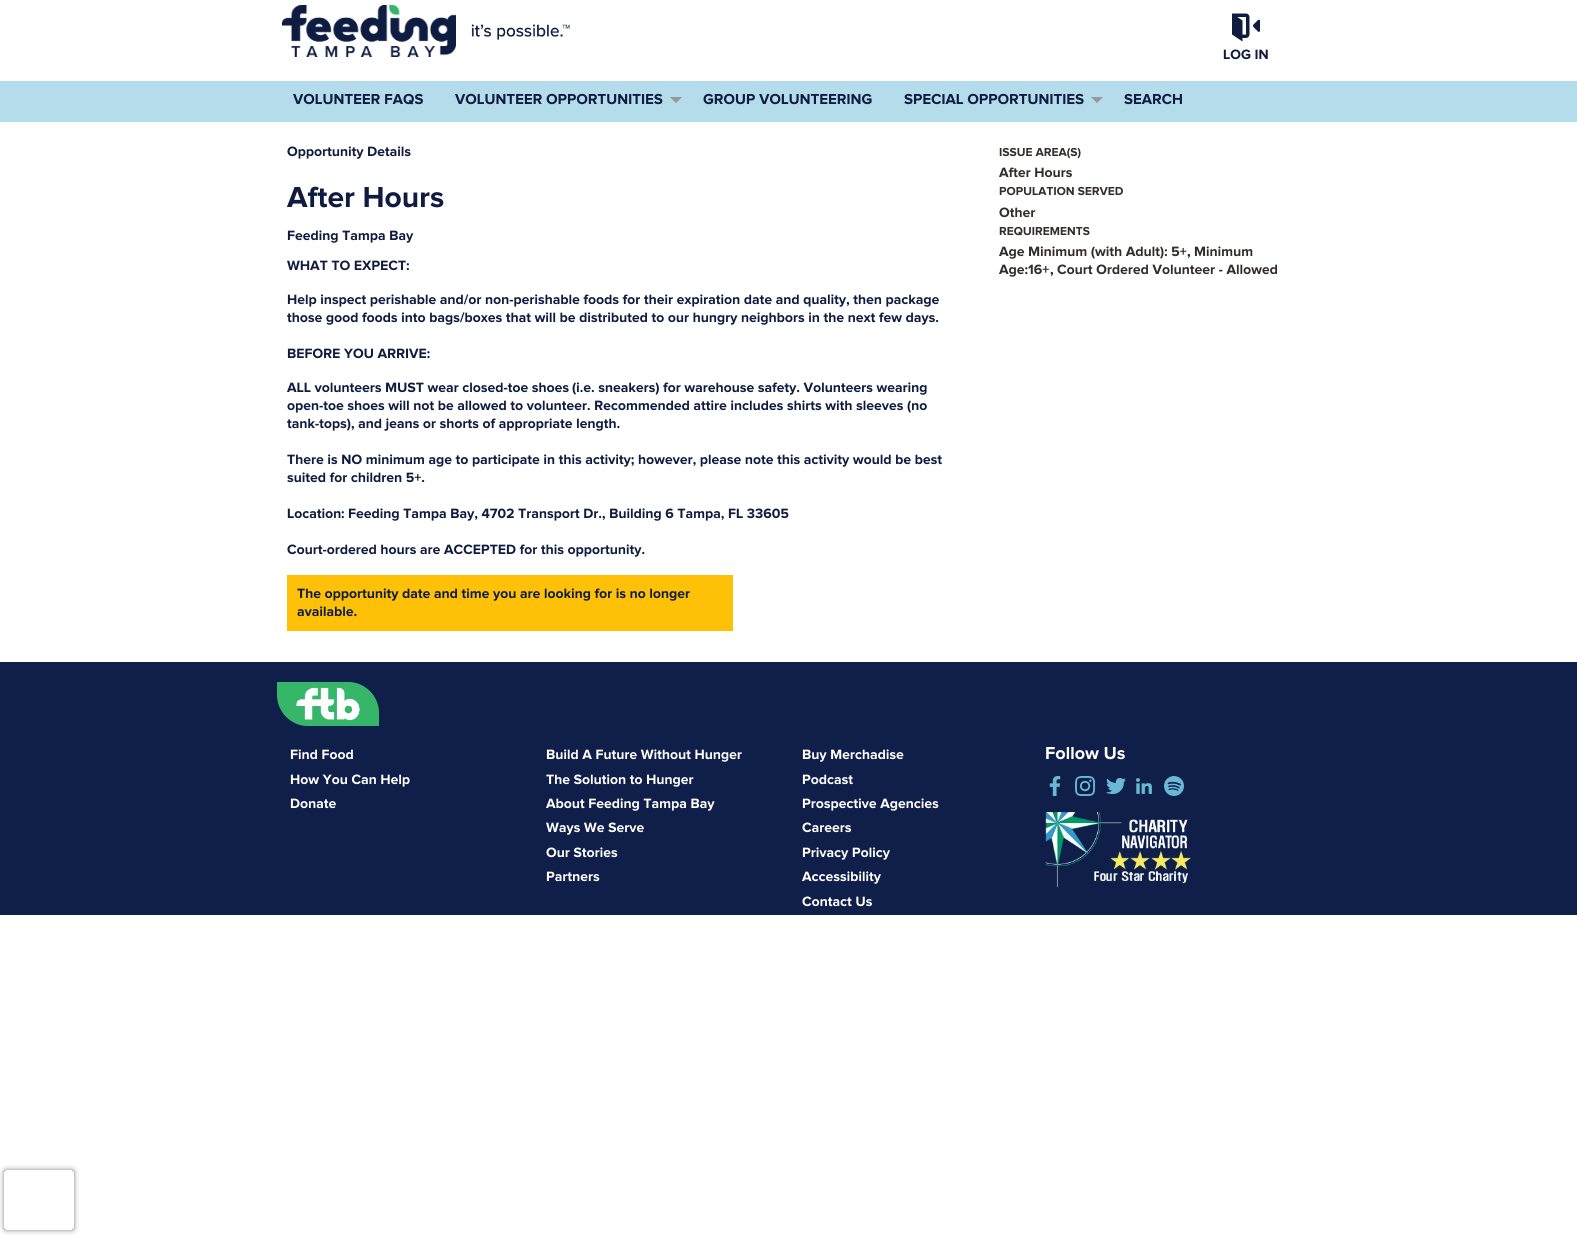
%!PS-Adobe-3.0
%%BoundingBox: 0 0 1577 1244
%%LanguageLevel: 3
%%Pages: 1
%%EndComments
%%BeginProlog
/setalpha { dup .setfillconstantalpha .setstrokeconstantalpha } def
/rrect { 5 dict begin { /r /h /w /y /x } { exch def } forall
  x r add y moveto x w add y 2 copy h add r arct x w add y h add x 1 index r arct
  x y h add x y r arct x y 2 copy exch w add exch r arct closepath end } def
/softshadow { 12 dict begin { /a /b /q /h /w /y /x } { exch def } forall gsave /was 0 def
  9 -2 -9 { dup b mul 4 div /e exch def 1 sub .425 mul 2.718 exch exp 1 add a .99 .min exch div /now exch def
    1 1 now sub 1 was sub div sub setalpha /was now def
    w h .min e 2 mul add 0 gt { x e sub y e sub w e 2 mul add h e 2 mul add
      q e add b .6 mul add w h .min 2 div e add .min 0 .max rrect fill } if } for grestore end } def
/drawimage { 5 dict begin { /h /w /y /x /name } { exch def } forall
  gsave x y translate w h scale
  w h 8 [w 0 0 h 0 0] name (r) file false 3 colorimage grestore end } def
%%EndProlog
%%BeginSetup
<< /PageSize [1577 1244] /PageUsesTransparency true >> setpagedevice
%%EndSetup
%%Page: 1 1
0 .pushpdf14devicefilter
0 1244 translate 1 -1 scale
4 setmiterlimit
1 setgray
0 0 1577 1244 rectfill
(images/1.raw) 282 5 174 52 drawimage
(images/2.raw) 471 24 99 16 drawimage
(images/3.raw) 1232 13 28 29 drawimage
(images/4.raw) 1223 49 45 11 drawimage
0.706 0.863 0.918 setrgbcolor
0 81 1577 41 rectfill
(images/5.raw) 293 93 130 12 drawimage
(images/6.raw) 455 93 208 12 drawimage
0.596 setgray
newpath 670 97 moveto 682 97 lineto 676 103 lineto closepath fill
(images/7.raw) 703 93 169 12 drawimage
(images/8.raw) 904 93 180 12 drawimage
newpath 1091 97 moveto 1103 97 lineto 1097 103 lineto closepath fill
(images/9.raw) 1124 93 58 12 drawimage
(images/10.raw) 287 146 124 13 drawimage
(images/11.raw) 287 186 157 22 drawimage
(images/12.raw) 287 230 127 13 drawimage
(images/13.raw) 287 260 122 11 drawimage
(images/14.raw) 287 294 652 13 drawimage
(images/15.raw) 287 312 652 13 drawimage
(images/16.raw) 287 348 143 11 drawimage
(images/17.raw) 287 382 282 11 drawimage
(images/18.raw) 572 382 355 13 drawimage
(images/19.raw) 287 400 640 13 drawimage
(images/20.raw) 287 418 333 13 drawimage
(images/21.raw) 287 454 655 13 drawimage
(images/22.raw) 287 472 138 11 drawimage
(images/23.raw) 287 508 54 11 drawimage
(images/24.raw) 341 508 448 13 drawimage
(images/25.raw) 287 544 358 13 drawimage
1 0.757 0.027 setrgbcolor
287 575 446 56 rectfill
(images/26.raw) 297 588 393 13 drawimage
(images/27.raw) 297 606 60 11 drawimage
(images/28.raw) 999 147 82 12 drawimage
(images/29.raw) 999 167 73 11 drawimage
(images/30.raw) 999 186 124 10 drawimage
(images/31.raw) 999 207 37 11 drawimage
(images/32.raw) 999 226 91 10 drawimage
(images/33.raw) 999 246 188 13 drawimage
(images/34.raw) 1187 253 3 5 drawimage
(images/35.raw) 1194 246 59 11 drawimage
(images/36.raw) 999 264 50 13 drawimage
(images/34.raw) 1050 271 3 5 drawimage
(images/37.raw) 1057 264 220 11 drawimage
0.063 0.122 0.286 setrgbcolor
0 662 1577 253 rectfill
(images/38.raw) 277 682 102 44 drawimage
(images/39.raw) 290 749 63 11 drawimage
(images/40.raw) 290 774 120 13 drawimage
(images/41.raw) 290 798 46 11 drawimage
(images/42.raw) 546 749 196 13 drawimage
(images/43.raw) 546 774 148 13 drawimage
(images/44.raw) 546 798 169 13 drawimage
(images/45.raw) 546 822 98 13 drawimage
(images/46.raw) 546 847 72 11 drawimage
(images/47.raw) 546 871 54 11 drawimage
(images/48.raw) 802 749 102 13 drawimage
(images/49.raw) 802 774 51 11 drawimage
(images/50.raw) 802 798 137 13 drawimage
(images/51.raw) 802 822 49 11 drawimage
(images/52.raw) 802 847 88 13 drawimage
(images/53.raw) 802 871 79 13 drawimage
(images/54.raw) 802 896 70 11 drawimage
(images/55.raw) 1046 747 79 13 drawimage
(images/56.raw) 1049 776 12 20 drawimage
(images/57.raw) 1075 776 20 20 drawimage
(images/58.raw) 1106 778 20 16 drawimage
(images/59.raw) 1136 778 16 16 drawimage
(images/60.raw) 1164 776 20 20 drawimage
(images/61.raw) 1045 812 146 76 drawimage
gsave
newpath 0 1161 moveto 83 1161 lineto 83 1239 lineto 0 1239 lineto closepath 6 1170 moveto 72 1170 lineto 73 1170 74 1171 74 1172 curveto 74 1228 lineto 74 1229 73 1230 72 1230 curveto 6 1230 lineto 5 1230 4 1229 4 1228 curveto 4 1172 lineto 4 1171 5 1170 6 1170 curveto closepath eoclip newpath
0.502 setgray
4 1170 70 60 2 2.5 1 softshadow
grestore
.poppdf14devicefilter showpage
%%EOF
